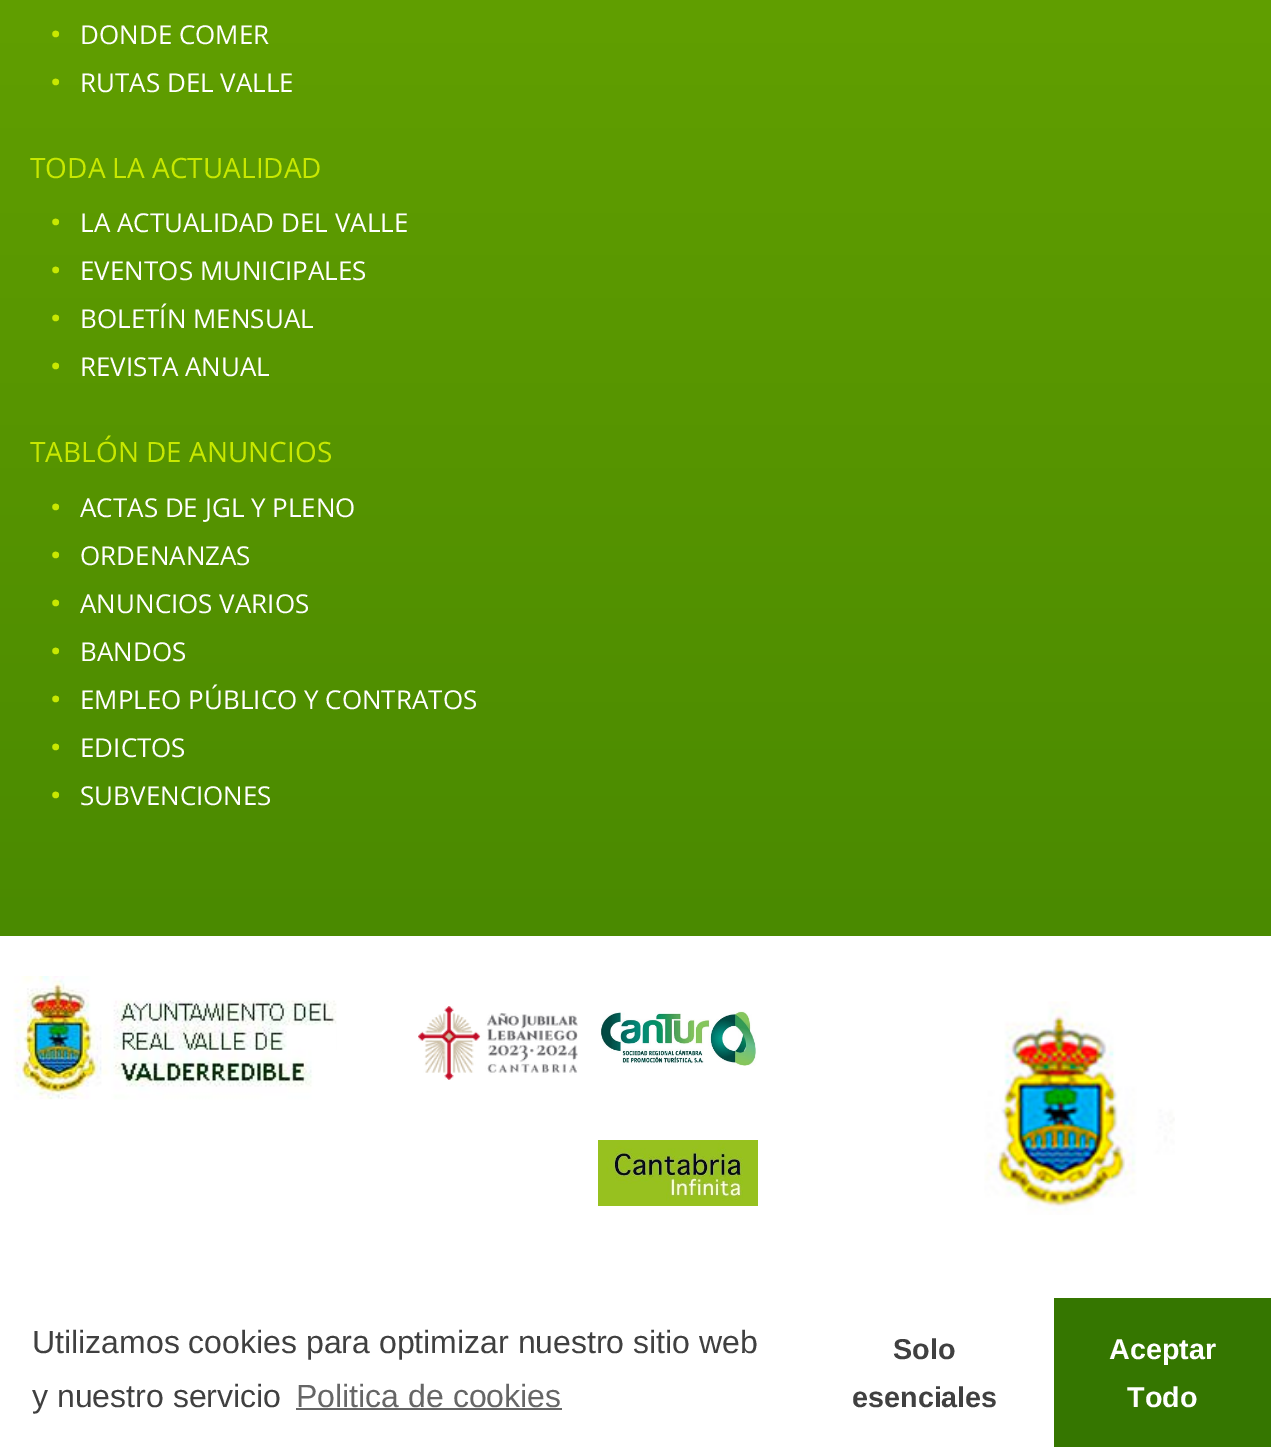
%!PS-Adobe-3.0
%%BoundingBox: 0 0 1271 1447
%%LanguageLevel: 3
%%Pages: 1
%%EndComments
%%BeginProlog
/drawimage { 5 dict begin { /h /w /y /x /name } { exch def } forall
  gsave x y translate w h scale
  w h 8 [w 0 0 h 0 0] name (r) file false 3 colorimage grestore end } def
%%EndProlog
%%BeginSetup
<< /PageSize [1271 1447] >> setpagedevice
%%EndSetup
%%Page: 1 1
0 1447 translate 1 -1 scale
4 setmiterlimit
1 setgray
0 0 1271 1447 rectfill
gsave newpath 0 0 moveto 1271 0 lineto 1271 936 lineto 0 936 lineto closepath clip newpath
<< /ShadingType 2 /ColorSpace /DeviceRGB /Coords [636 -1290 636 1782] /Extend [true true] /Function << /FunctionType 2 /Domain [0 1] /C0 [0.506 0.741 0] /C1 [0.208 0.463 0] /N 1 >> >> shfill grestore
(images/1.raw) 13 976 324 124 drawimage
(images/2.raw) 418 1006 160 74 drawimage
(images/3.raw) 600 1010 157 56 drawimage
(images/4.raw) 598 1140 160 66 drawimage
(images/5.raw) 984 1001 191 214 drawimage
0.4 setgray
296 1408 266 2 rectfill
0.208 0.463 0 setrgbcolor
1054 1298 217 149 rectfill
/OpenSans-Bold [40 0 0 -40 0 0] selectfont
0.784 0.91 0 setrgbcolor
50 48 moveto (·) show
/OpenSans-Regular [26 0 0 -26 0 0] selectfont
1 setgray
80 44 moveto (DONDE COMER) show
/OpenSans-Bold [40 0 0 -40 0 0] selectfont
0.784 0.91 0 setrgbcolor
50 96 moveto (·) show
/OpenSans-Regular [26 0 0 -26 0 0] selectfont
1 setgray
80 92 moveto (RUTAS DEL VALLE) show
/OpenSans-Regular [28 0 0 -28 0 0] selectfont
0.784 0.91 0 setrgbcolor
30 178 moveto (TODA LA ACTUALIDAD) show
/OpenSans-Bold [40 0 0 -40 0 0] selectfont
50 236 moveto (·) show
/OpenSans-Regular [26 0 0 -26 0 0] selectfont
1 setgray
80 232 moveto (LA ACTUALIDAD DEL VALLE) show
/OpenSans-Bold [40 0 0 -40 0 0] selectfont
0.784 0.91 0 setrgbcolor
50 284 moveto (·) show
/OpenSans-Regular [26 0 0 -26 0 0] selectfont
1 setgray
80 280 moveto (EVENTOS MUNICIPALES) show
/OpenSans-Bold [40 0 0 -40 0 0] selectfont
0.784 0.91 0 setrgbcolor
50 332 moveto (·) show
/OpenSans-Regular [26 0 0 -26 0 0] selectfont
1 setgray
80 328 moveto (BOLETÍN MENSUAL) show
/OpenSans-Bold [40 0 0 -40 0 0] selectfont
0.784 0.91 0 setrgbcolor
50 380 moveto (·) show
/OpenSans-Regular [26 0 0 -26 0 0] selectfont
1 setgray
80 376 moveto (REVISTA ANUAL) show
/OpenSans-Regular [28 0 0 -28 0 0] selectfont
0.784 0.91 0 setrgbcolor
30 462 moveto (TABLÓN DE ANUNCIOS) show
/OpenSans-Bold [40 0 0 -40 0 0] selectfont
50 521 moveto (·) show
/OpenSans-Regular [26 0 0 -26 0 0] selectfont
1 setgray
80 517 moveto (ACTAS DE JGL Y PLENO) show
/OpenSans-Bold [40 0 0 -40 0 0] selectfont
0.784 0.91 0 setrgbcolor
50 569 moveto (·) show
/OpenSans-Regular [26 0 0 -26 0 0] selectfont
1 setgray
80 565 moveto (ORDENANZAS) show
/OpenSans-Bold [40 0 0 -40 0 0] selectfont
0.784 0.91 0 setrgbcolor
50 617 moveto (·) show
/OpenSans-Regular [26 0 0 -26 0 0] selectfont
1 setgray
80 613 moveto (ANUNCIOS VARIOS) show
/OpenSans-Bold [40 0 0 -40 0 0] selectfont
0.784 0.91 0 setrgbcolor
50 665 moveto (·) show
/OpenSans-Regular [26 0 0 -26 0 0] selectfont
1 setgray
80 661 moveto (BANDOS) show
/OpenSans-Bold [40 0 0 -40 0 0] selectfont
0.784 0.91 0 setrgbcolor
50 713 moveto (·) show
/OpenSans-Regular [26 0 0 -26 0 0] selectfont
1 setgray
80 709 moveto (EMPLEO PÚBLICO Y CONTRATOS) show
/OpenSans-Bold [40 0 0 -40 0 0] selectfont
0.784 0.91 0 setrgbcolor
50 761 moveto (·) show
/OpenSans-Regular [26 0 0 -26 0 0] selectfont
1 setgray
80 757 moveto (EDICTOS) show
/OpenSans-Bold [40 0 0 -40 0 0] selectfont
0.784 0.91 0 setrgbcolor
50 809 moveto (·) show
/OpenSans-Regular [26 0 0 -26 0 0] selectfont
1 setgray
80 805 moveto (SUBVENCIONES) show
/LiberationSans-Regular [32 0 0 -32 0 0] selectfont
0.251 setgray
32 1353 moveto (Utilizamos cookies para optimizar nuestro sitio web) show
32 1407 moveto (y nuestro servicio) show
0.4 setgray
296 1407 moveto (Politica de cookies) show
/LiberationSans-Bold [28.75 0 0 -28.75 0 0] selectfont
0.251 setgray
893 1359 moveto (Solo) show
852 1407 moveto (esenciales) show
1 setgray
1109 1359 moveto (Aceptar) show
1127 1407 moveto (Todo) show
showpage
%%EOF
